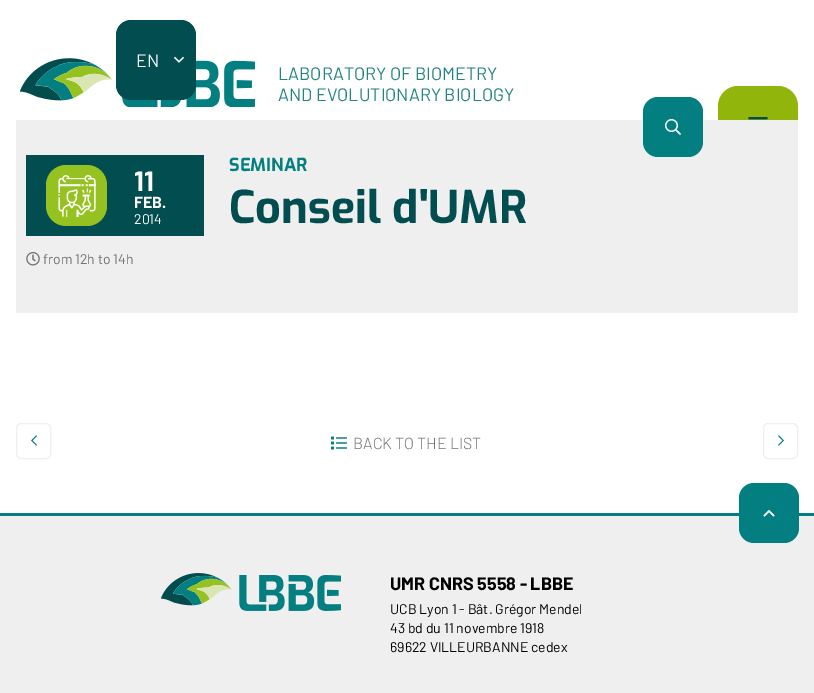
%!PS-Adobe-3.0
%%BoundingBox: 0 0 814 693
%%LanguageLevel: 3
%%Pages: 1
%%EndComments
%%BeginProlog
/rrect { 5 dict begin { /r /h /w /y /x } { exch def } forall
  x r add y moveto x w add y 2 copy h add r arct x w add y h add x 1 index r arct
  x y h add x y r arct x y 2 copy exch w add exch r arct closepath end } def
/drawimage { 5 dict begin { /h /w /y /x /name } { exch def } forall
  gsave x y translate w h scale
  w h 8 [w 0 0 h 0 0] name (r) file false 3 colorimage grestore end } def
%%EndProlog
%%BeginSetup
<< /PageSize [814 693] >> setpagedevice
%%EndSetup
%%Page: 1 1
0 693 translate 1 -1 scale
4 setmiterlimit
1 setgray
0 0 814 693 rectfill
(images/4.raw) 20 58 235 49 drawimage
0.004 0.302 0.31 setrgbcolor
116 20 80 80 15 rrect fill
(images/1.raw) 174 56 10 7 drawimage
0.573 0.71 0.043 setrgbcolor
718 86 80 80 20 rrect fill
0.937 setgray
16 120 782 193 rectfill
0.012 0.494 0.506 setrgbcolor
643 97 60 60 15 rrect fill
(images/2.raw) 665 119 16 16 drawimage
(images/3.raw) 748 117 20 3 drawimage
0.004 0.302 0.31 setrgbcolor
26 155 178 81 rectfill
0.584 0.757 0.129 setrgbcolor
46 165 61 61 20 rrect fill
(images/5.raw) 58 175 38 42 drawimage
(images/6.raw) 26 252 14 14 drawimage
0.937 setgray
16.5 423.5 34 35 4.5 rrect stroke
(images/7.raw) 31 435 6 11 drawimage
(images/8.raw) 331 436 16 14 drawimage
763.5 423.5 34 35 4.5 rrect stroke
(images/9.raw) 778 435 6 11 drawimage
0 516 814 177 rectfill
0.012 0.494 0.506 setrgbcolor
0 513 814 3 rectfill
739 483 60 60 15 rrect fill
(images/10.raw) 763 510 12 7 drawimage
(images/11.raw) 161 573 180 38 drawimage
/Barlow-Regular [18 0 0 -18 0 0] selectfont
1 setgray
136 67 moveto (EN) show
0.137 0.51 0.518 setrgbcolor
278 80 moveto (LABORATORY OF BIOMETRY) show
278 101 moveto (AND EVOLUTIONARY BIOLOGY) show
/Barlow-Bold [28 0 0 -28 0 0] selectfont
1 setgray
134 191 moveto (11) show
/Barlow-Bold [16 0 0 -16 0 0] selectfont
134 208 moveto (FEB.) show
/Barlow-Regular [14 0 0 -14 0 0] selectfont
134 224 moveto (2014) show
0.447 setgray
43 264 moveto (from 12h to 14h) show
/Exo-Bold [18 0 0 -18 0 0] selectfont
0.012 0.494 0.506 setrgbcolor
229 171 moveto (SEMINAR) show
/Exo-Bold [45 0 0 -45 0 0] selectfont
0.004 0.302 0.31 setrgbcolor
229 223 moveto (Conseil d'UMR) show
/Barlow-Light [16 0 0 -16 0 0] selectfont
0.447 setgray
353 449 moveto (BACK TO THE LIST) show
/Barlow-Bold [18 0 0 -18 0 0] selectfont
0 setgray
390 590 moveto (UMR CNRS 5558 - LBBE) show
/Barlow-Regular [14 0 0 -14 0 0] selectfont
390 614 moveto (UCB Lyon 1 - Bât. Grégor Mendel) show
390 633 moveto (43 bd du 11 novembre 1918) show
390 652 moveto (69622 VILLEURBANNE cedex) show
showpage
%%EOF
